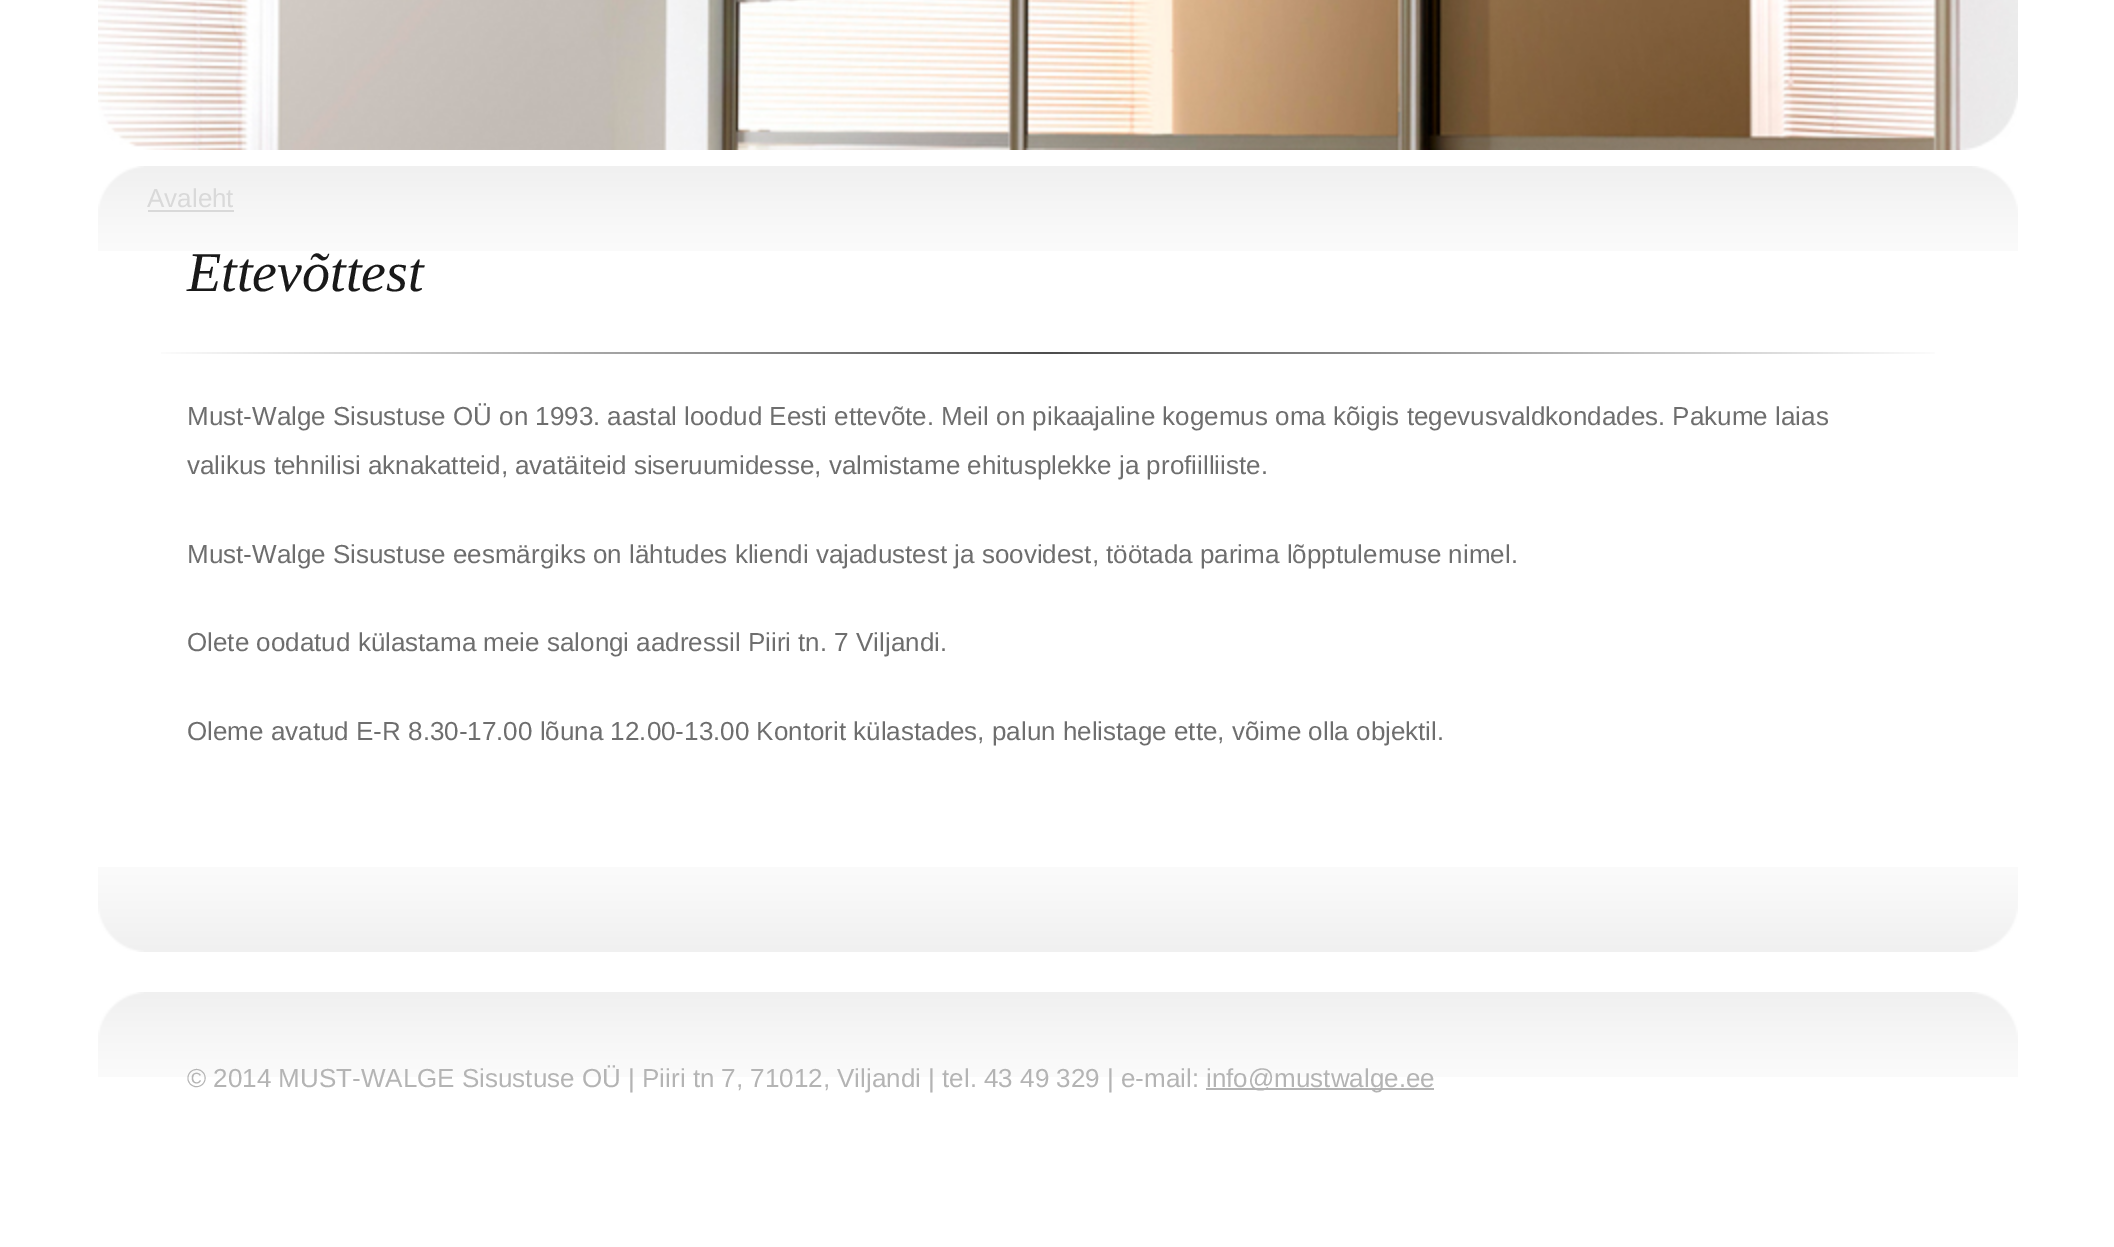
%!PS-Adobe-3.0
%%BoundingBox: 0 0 2114 1247
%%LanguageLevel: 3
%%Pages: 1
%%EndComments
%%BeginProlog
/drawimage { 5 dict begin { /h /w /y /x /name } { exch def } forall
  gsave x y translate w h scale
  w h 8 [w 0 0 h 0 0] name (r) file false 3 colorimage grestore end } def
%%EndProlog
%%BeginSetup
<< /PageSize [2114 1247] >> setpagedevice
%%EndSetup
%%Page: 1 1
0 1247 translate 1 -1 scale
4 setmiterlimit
1 setgray
0 0 2114 1247 rectfill
(images/1.raw) 98 0 1920 150 drawimage
(images/2.raw) 98 166 1920 85 drawimage
0.851 setgray
148 210 86 2 rectfill
gsave newpath 161 352 moveto 1935 352 lineto 1935 354 lineto 161 354 lineto closepath clip newpath
<< /ShadingType 2 /ColorSpace /DeviceRGB /Coords [148 353 1948 353] /Extend [true true] /Function << /FunctionType 3 /Domain [0 1] /Functions [<< /FunctionType 2 /Domain [0 1] /C0 [1 1 1] /C1 [0.302 0.302 0.302] /N 1 >> << /FunctionType 2 /Domain [0 1] /C0 [0.302 0.302 0.302] /C1 [1 1 1] /N 1 >>] /Bounds [0.5] /Encode [0 1 0 1] >> >> shfill grestore
(images/3.raw) 98 867 1920 85 drawimage
(images/2.raw) 98 992 1920 85 drawimage
0.706 setgray
1206 1088 228 2 rectfill
/LiberationSans-Regular [26 0 0 -26 0 0] selectfont
0.851 setgray
147 207 moveto (Avaleht) show
/LiberationSerif-Italic [56 0 0 -56 0 0] selectfont
0.098 setgray
187 291 moveto (Ettevõttest) show
/LiberationSans-Regular [26 0 0 -26 0 0] selectfont
0.431 setgray
187 425 moveto (Must-Walge Sisustuse OÜ on 1993. aastal loodud Eesti ettevõte. Meil on pikaajaline kogemus oma kõigis tegevusvaldkondades. Pakume laias) show
187 474 moveto (valikus tehnilisi aknakatteid, avatäiteid siseruumidesse, valmistame ehitusplekke ja profiilliiste.) show
187 563 moveto (Must-Walge Sisustuse eesmärgiks on lähtudes kliendi vajadustest ja soovidest, töötada parima lõpptulemuse nimel.) show
187 651 moveto (Olete oodatud külastama meie salongi aadressil Piiri tn. 7 Viljandi.) show
187 740 moveto (Oleme avatud E-R 8.30-17.00 lõuna 12.00-13.00 Kontorit külastades, palun helistage ette, võime olla objektil.) show
0.706 setgray
187 1087 moveto (© 2014 MUST-WALGE Sisustuse OÜ | Piiri tn 7, 71012, Viljandi | tel. 43 49 329 | e-mail:) show
1206 1087 moveto (info@mustwalge.ee) show
showpage
%%EOF
